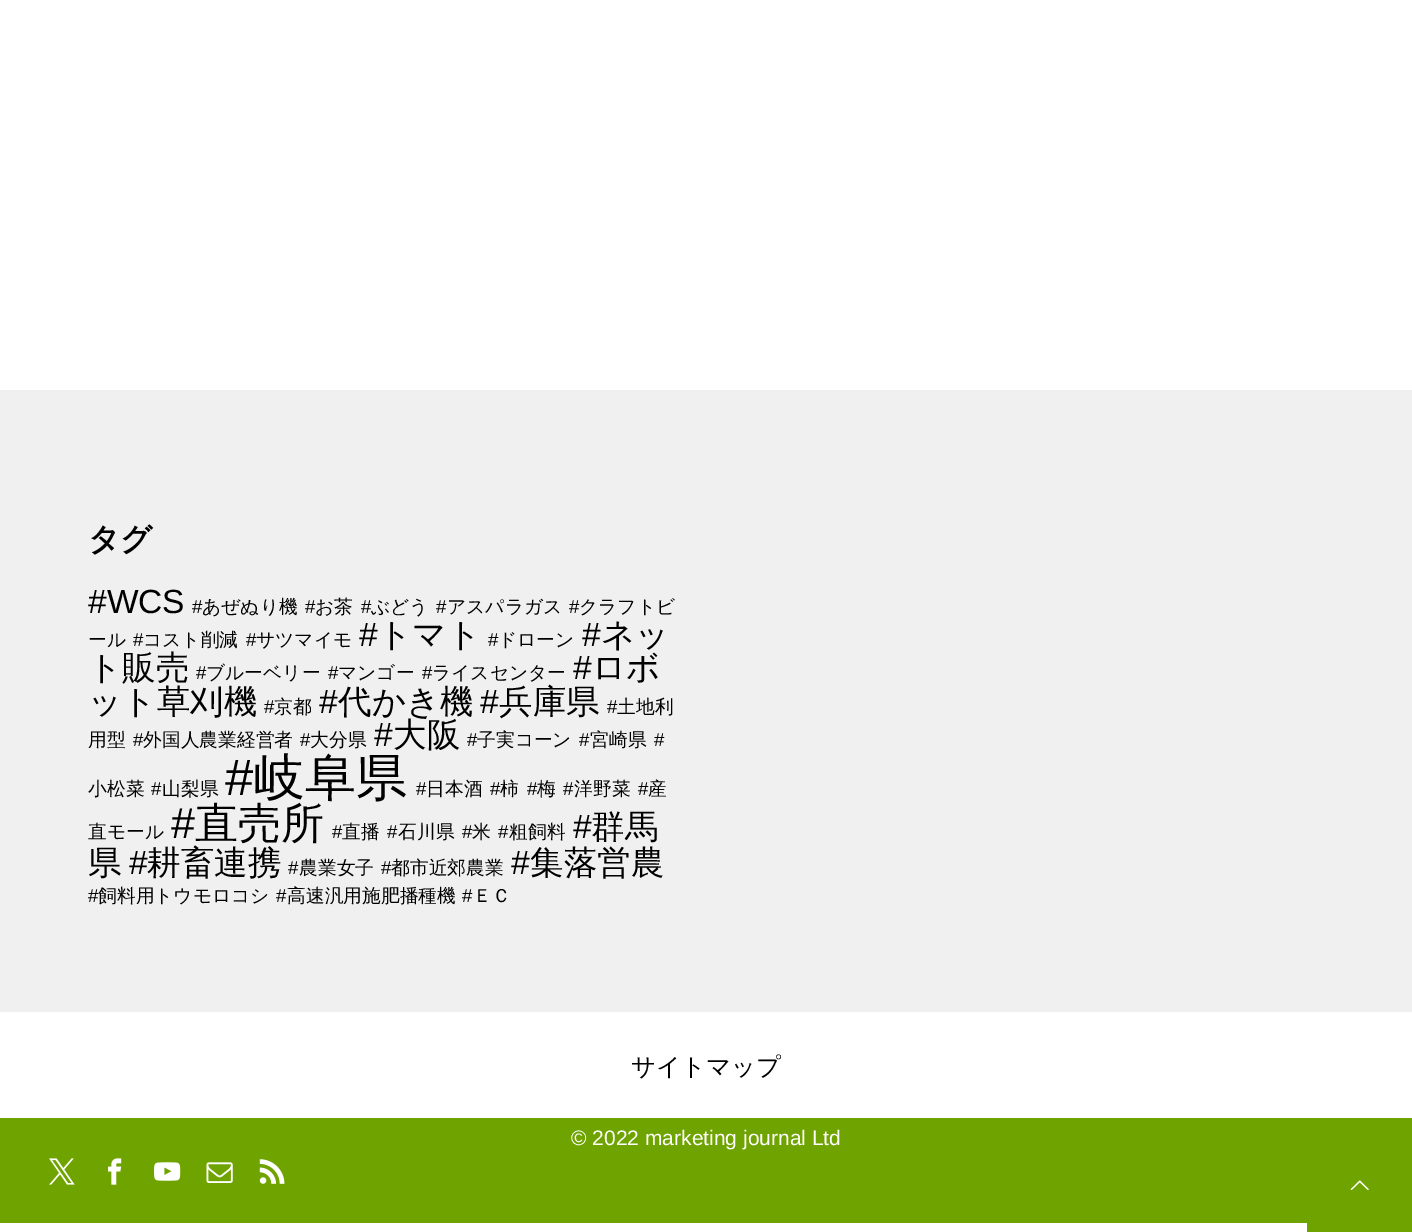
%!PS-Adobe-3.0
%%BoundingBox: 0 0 1412 1232
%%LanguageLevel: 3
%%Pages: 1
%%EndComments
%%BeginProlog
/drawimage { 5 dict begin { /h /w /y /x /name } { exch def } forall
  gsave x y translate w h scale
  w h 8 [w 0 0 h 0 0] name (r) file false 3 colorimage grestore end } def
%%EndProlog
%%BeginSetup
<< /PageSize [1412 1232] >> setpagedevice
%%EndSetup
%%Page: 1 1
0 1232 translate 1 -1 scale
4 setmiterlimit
1 setgray
0 0 1412 1232 rectfill
0.941 setgray
0 390 1412 622 rectfill
0.435 0.639 0 setrgbcolor
0 1118 1412 105 rectfill
(images/1.raw) 49 1158 26 27 drawimage
(images/2.raw) 108 1158 14 27 drawimage
(images/3.raw) 154 1162 27 19 drawimage
(images/4.raw) 206 1162 27 21 drawimage
(images/5.raw) 259 1159 26 25 drawimage
1307 1223 105 9 rectfill
(images/6.raw) 1350 1180 19 10 drawimage
/WenQuanYiZenHei-Bold [31.5 0 0 -31.5 0 0] selectfont
0 setgray
88 550 moveto (タグ) show
/LiberationSans-Regular [33.5 0 0 -33.5 0 0] selectfont
88 613 moveto (#WCS) show
/LiberationSans-Regular [18.75 0 0 -18.75 0 0] selectfont
192 613 moveto (#) show
/WenQuanYiZenHei-Medium [18.75 0 0 -18.75 0 0] selectfont
202 613 moveto (あぜぬり機) show
/LiberationSans-Regular [18.75 0 0 -18.75 0 0] selectfont
305 613 moveto (#) show
/WenQuanYiZenHei-Medium [18.75 0 0 -18.75 0 0] selectfont
315 613 moveto (お茶) show
/LiberationSans-Regular [18.75 0 0 -18.75 0 0] selectfont
361 613 moveto (#) show
/WenQuanYiZenHei-Medium [18.75 0 0 -18.75 0 0] selectfont
371 613 moveto (ぶどう) show
/LiberationSans-Regular [18.75 0 0 -18.75 0 0] selectfont
436 613 moveto (#) show
/WenQuanYiZenHei-Medium [18.75 0 0 -18.75 0 0] selectfont
447 613 moveto (アスパラガス) show
/LiberationSans-Regular [18.75 0 0 -18.75 0 0] selectfont
569 613 moveto (#) show
/WenQuanYiZenHei-Medium [18.75 0 0 -18.75 0 0] selectfont
579 613 moveto (クラフトビ) show
88 646 moveto (ール) show
/LiberationSans-Regular [18.75 0 0 -18.75 0 0] selectfont
133 646 moveto (#) show
/WenQuanYiZenHei-Medium [18.75 0 0 -18.75 0 0] selectfont
143 646 moveto (コスト削減) show
/LiberationSans-Regular [18.75 0 0 -18.75 0 0] selectfont
246 646 moveto (#) show
/WenQuanYiZenHei-Medium [18.75 0 0 -18.75 0 0] selectfont
256 646 moveto (サツマイモ) show
/LiberationSans-Regular [33.5 0 0 -33.5 0 0] selectfont
359 646 moveto (#) show
/WenQuanYiZenHei-Medium [33.5 0 0 -33.5 0 0] selectfont
378 646 moveto (トマト) show
/LiberationSans-Regular [18.75 0 0 -18.75 0 0] selectfont
488 646 moveto (#) show
/WenQuanYiZenHei-Medium [18.75 0 0 -18.75 0 0] selectfont
498 646 moveto (ドローン) show
/LiberationSans-Regular [33.5 0 0 -33.5 0 0] selectfont
582 646 moveto (#) show
/WenQuanYiZenHei-Medium [33.5 0 0 -33.5 0 0] selectfont
601 646 moveto (ネッ) show
88 679 moveto (ト販売) show
/LiberationSans-Regular [18.75 0 0 -18.75 0 0] selectfont
196 679 moveto (#) show
/WenQuanYiZenHei-Medium [18.75 0 0 -18.75 0 0] selectfont
206 679 moveto (ブルーベリー) show
/LiberationSans-Regular [18.75 0 0 -18.75 0 0] selectfont
328 679 moveto (#) show
/WenQuanYiZenHei-Medium [18.75 0 0 -18.75 0 0] selectfont
338 679 moveto (マンゴー) show
/LiberationSans-Regular [18.75 0 0 -18.75 0 0] selectfont
422 679 moveto (#) show
/WenQuanYiZenHei-Medium [18.75 0 0 -18.75 0 0] selectfont
432 679 moveto (ライスセンター) show
/LiberationSans-Regular [33.5 0 0 -33.5 0 0] selectfont
573 679 moveto (#) show
/WenQuanYiZenHei-Medium [33.5 0 0 -33.5 0 0] selectfont
592 679 moveto (ロボ) show
88 713 moveto (ット草刈機) show
/LiberationSans-Regular [18.75 0 0 -18.75 0 0] selectfont
264 713 moveto (#) show
/WenQuanYiZenHei-Medium [18.75 0 0 -18.75 0 0] selectfont
274 713 moveto (京都) show
/LiberationSans-Regular [33.5 0 0 -33.5 0 0] selectfont
319 713 moveto (#) show
/WenQuanYiZenHei-Medium [33.5 0 0 -33.5 0 0] selectfont
338 713 moveto (代かき機) show
/LiberationSans-Regular [33.5 0 0 -33.5 0 0] selectfont
480 713 moveto (#) show
/WenQuanYiZenHei-Medium [33.5 0 0 -33.5 0 0] selectfont
499 713 moveto (兵庫県) show
/LiberationSans-Regular [18.75 0 0 -18.75 0 0] selectfont
607 713 moveto (#) show
/WenQuanYiZenHei-Medium [18.75 0 0 -18.75 0 0] selectfont
617 713 moveto (土地利) show
88 746 moveto (用型) show
/LiberationSans-Regular [18.75 0 0 -18.75 0 0] selectfont
133 746 moveto (#) show
/WenQuanYiZenHei-Medium [18.75 0 0 -18.75 0 0] selectfont
143 746 moveto (外国人農業経営者) show
/LiberationSans-Regular [18.75 0 0 -18.75 0 0] selectfont
300 746 moveto (#) show
/WenQuanYiZenHei-Medium [18.75 0 0 -18.75 0 0] selectfont
310 746 moveto (大分県) show
/LiberationSans-Regular [33.5 0 0 -33.5 0 0] selectfont
374 746 moveto (#) show
/WenQuanYiZenHei-Medium [33.5 0 0 -33.5 0 0] selectfont
393 746 moveto (大阪) show
/LiberationSans-Regular [18.75 0 0 -18.75 0 0] selectfont
467 746 moveto (#) show
/WenQuanYiZenHei-Medium [18.75 0 0 -18.75 0 0] selectfont
477 746 moveto (子実コーン) show
/LiberationSans-Regular [18.75 0 0 -18.75 0 0] selectfont
579 746 moveto (#) show
/WenQuanYiZenHei-Medium [18.75 0 0 -18.75 0 0] selectfont
590 746 moveto (宮崎県) show
/LiberationSans-Regular [18.75 0 0 -18.75 0 0] selectfont
654 746 moveto (#) show
/WenQuanYiZenHei-Medium [18.75 0 0 -18.75 0 0] selectfont
88 795 moveto (小松菜) show
/LiberationSans-Regular [18.75 0 0 -18.75 0 0] selectfont
151 795 moveto (#) show
/WenQuanYiZenHei-Medium [18.75 0 0 -18.75 0 0] selectfont
162 795 moveto (山梨県) show
/LiberationSans-Regular [51 0 0 -51 0 0] selectfont
225 795 moveto (#) show
/WenQuanYiZenHei-Medium [51 0 0 -51 0 0] selectfont
254 795 moveto (岐阜県) show
/LiberationSans-Regular [18.75 0 0 -18.75 0 0] selectfont
416 795 moveto (#) show
/WenQuanYiZenHei-Medium [18.75 0 0 -18.75 0 0] selectfont
426 795 moveto (日本酒) show
/LiberationSans-Regular [18.75 0 0 -18.75 0 0] selectfont
490 795 moveto (#) show
/WenQuanYiZenHei-Medium [18.75 0 0 -18.75 0 0] selectfont
500 795 moveto (柿) show
/LiberationSans-Regular [18.75 0 0 -18.75 0 0] selectfont
527 795 moveto (#) show
/WenQuanYiZenHei-Medium [18.75 0 0 -18.75 0 0] selectfont
537 795 moveto (梅) show
/LiberationSans-Regular [18.75 0 0 -18.75 0 0] selectfont
563 795 moveto (#) show
/WenQuanYiZenHei-Medium [18.75 0 0 -18.75 0 0] selectfont
574 795 moveto (洋野菜) show
/LiberationSans-Regular [18.75 0 0 -18.75 0 0] selectfont
638 795 moveto (#) show
/WenQuanYiZenHei-Medium [18.75 0 0 -18.75 0 0] selectfont
648 795 moveto (産) show
88 838 moveto (直モール) show
/LiberationSans-Regular [43 0 0 -43 0 0] selectfont
171 838 moveto (#) show
/WenQuanYiZenHei-Medium [43 0 0 -43 0 0] selectfont
195 838 moveto (直売所) show
/LiberationSans-Regular [18.75 0 0 -18.75 0 0] selectfont
332 838 moveto (#) show
/WenQuanYiZenHei-Medium [18.75 0 0 -18.75 0 0] selectfont
342 838 moveto (直播) show
/LiberationSans-Regular [18.75 0 0 -18.75 0 0] selectfont
387 838 moveto (#) show
/WenQuanYiZenHei-Medium [18.75 0 0 -18.75 0 0] selectfont
398 838 moveto (石川県) show
/LiberationSans-Regular [18.75 0 0 -18.75 0 0] selectfont
462 838 moveto (#) show
/WenQuanYiZenHei-Medium [18.75 0 0 -18.75 0 0] selectfont
472 838 moveto (米) show
/LiberationSans-Regular [18.75 0 0 -18.75 0 0] selectfont
498 838 moveto (#) show
/WenQuanYiZenHei-Medium [18.75 0 0 -18.75 0 0] selectfont
509 838 moveto (粗飼料) show
/LiberationSans-Regular [33.5 0 0 -33.5 0 0] selectfont
573 838 moveto (#) show
/WenQuanYiZenHei-Medium [33.5 0 0 -33.5 0 0] selectfont
591 838 moveto (群馬) show
88 874 moveto (県) show
/LiberationSans-Regular [33.5 0 0 -33.5 0 0] selectfont
129 874 moveto (#) show
/WenQuanYiZenHei-Medium [33.5 0 0 -33.5 0 0] selectfont
147 874 moveto (耕畜連携) show
/LiberationSans-Regular [18.75 0 0 -18.75 0 0] selectfont
288 874 moveto (#) show
/WenQuanYiZenHei-Medium [18.75 0 0 -18.75 0 0] selectfont
299 874 moveto (農業女子) show
/LiberationSans-Regular [18.75 0 0 -18.75 0 0] selectfont
381 874 moveto (#) show
/WenQuanYiZenHei-Medium [18.75 0 0 -18.75 0 0] selectfont
391 874 moveto (都市近郊農業) show
/LiberationSans-Regular [33.5 0 0 -33.5 0 0] selectfont
511 874 moveto (#) show
/WenQuanYiZenHei-Medium [33.5 0 0 -33.5 0 0] selectfont
530 874 moveto (集落営農) show
/LiberationSans-Regular [18.75 0 0 -18.75 0 0] selectfont
88 902 moveto (#) show
/WenQuanYiZenHei-Medium [18.75 0 0 -18.75 0 0] selectfont
98 902 moveto (飼料用トウモロコシ) show
/LiberationSans-Regular [18.75 0 0 -18.75 0 0] selectfont
276 902 moveto (#) show
/WenQuanYiZenHei-Medium [18.75 0 0 -18.75 0 0] selectfont
287 902 moveto (高速汎用施肥播種機) show
/LiberationSans-Regular [18.75 0 0 -18.75 0 0] selectfont
462 902 moveto (#) show
/WenQuanYiZenHei-Medium [18.75 0 0 -18.75 0 0] selectfont
473 902 moveto (ＥＣ) show
/WenQuanYiZenHei-Medium [24.5 0 0 -24.5 0 0] selectfont
631 1075 moveto (サイトマップ) show
/LiberationSans-Regular [21 0 0 -21 0 0] selectfont
1 setgray
571 1145 moveto (© 2022 marketing journal Ltd) show
showpage
%%EOF
